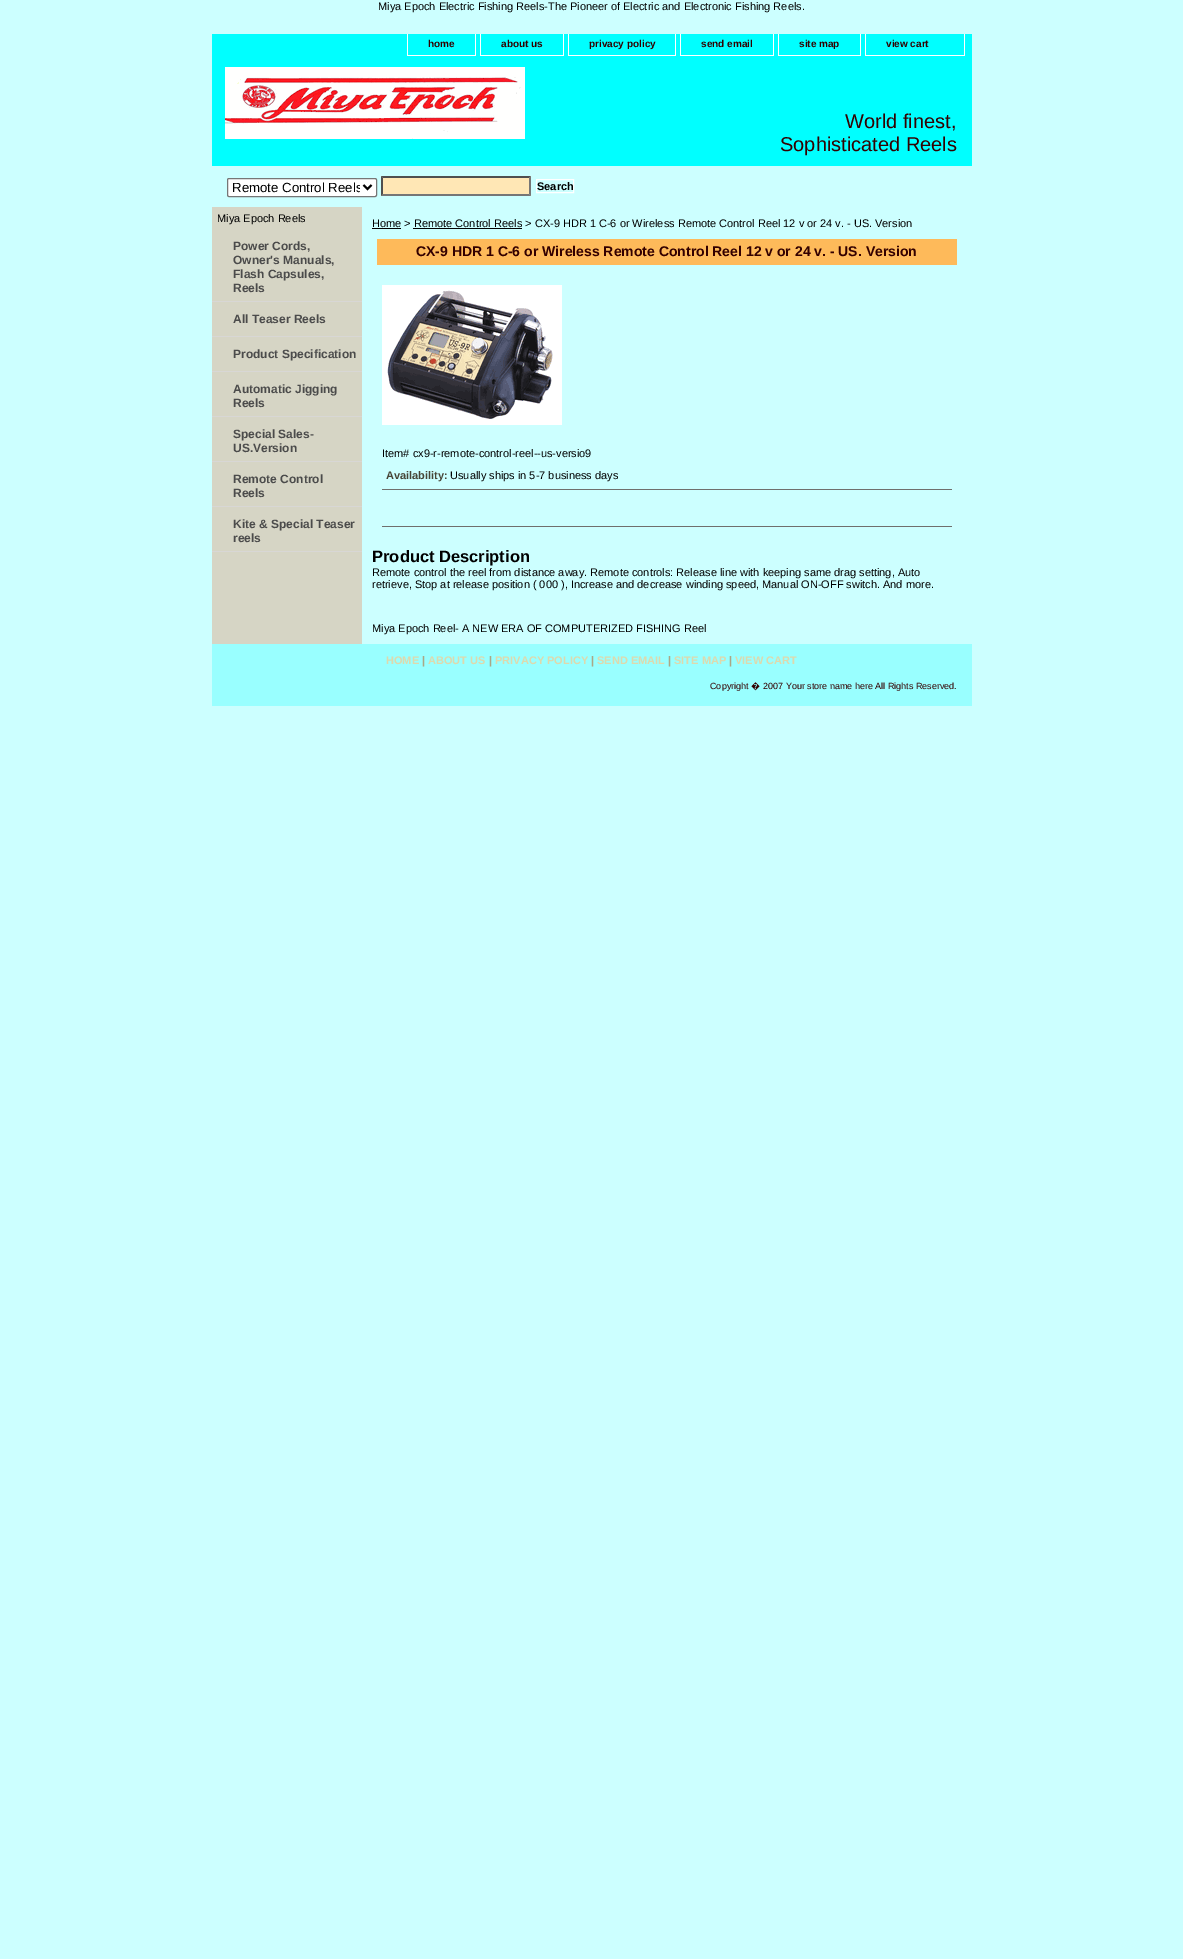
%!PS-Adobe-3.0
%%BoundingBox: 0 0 1183 1959
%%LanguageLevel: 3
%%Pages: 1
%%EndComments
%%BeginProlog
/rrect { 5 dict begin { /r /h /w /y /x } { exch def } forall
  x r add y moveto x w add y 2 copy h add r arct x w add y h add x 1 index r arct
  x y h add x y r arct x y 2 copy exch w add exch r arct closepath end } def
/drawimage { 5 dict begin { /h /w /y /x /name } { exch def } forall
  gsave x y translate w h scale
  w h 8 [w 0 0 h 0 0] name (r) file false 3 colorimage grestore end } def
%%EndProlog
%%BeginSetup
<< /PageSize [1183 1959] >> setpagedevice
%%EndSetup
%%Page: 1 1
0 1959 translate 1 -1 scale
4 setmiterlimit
0.8 1 1 setrgbcolor
0 0 1183 1959 rectfill
0 1 1 setrgbcolor
212 34 760 132 rectfill
1 setgray
475 34 1 22 rectfill
407 55 69 1 rectfill
407 34 1 22 rectfill
563 34 1 22 rectfill
480 55 84 1 rectfill
480 34 1 22 rectfill
675 34 1 22 rectfill
568 55 108 1 rectfill
568 34 1 22 rectfill
773 34 1 22 rectfill
680 55 94 1 rectfill
680 34 1 22 rectfill
860 34 1 22 rectfill
778 55 83 1 rectfill
778 34 1 22 rectfill
964 34 1 22 rectfill
865 55 100 1 rectfill
865 34 1 22 rectfill
(images/1.raw) 225 67 300 72 drawimage
227.5 178.5 149 18 1.5 rrect gsave fill grestore
0.463 setgray
stroke
0 setgray
2 setlinewidth
newpath 363.5 185 moveto 367.5 189 lineto 371.5 185 lineto stroke
1 0.906 0.71 setrgbcolor
381 176 150 20 rectfill
0.31 setgray
newpath 381 176 moveto 531 176 lineto 529 178 lineto 383 178 lineto closepath fill
0.463 setgray
newpath 531 176 moveto 531 196 lineto 529 194 lineto 529 178 lineto closepath fill
newpath 531 196 moveto 381 196 lineto 383 194 lineto 529 194 lineto closepath fill
0.31 setgray
newpath 381 196 moveto 381 176 lineto 383 178 lineto 383 194 lineto closepath fill
1 setgray
1 setlinewidth
536.5 179.5 37 13 rectstroke
0.839 0.835 0.773 setrgbcolor
212 207 150 437 rectfill
0.847 0.843 0.835 setrgbcolor
212 301 150 1 rectfill
212 336 150 1 rectfill
212 371 150 1 rectfill
212 416 150 1 rectfill
212 461 150 1 rectfill
212 506 150 1 rectfill
212 551 150 1 rectfill
0 setgray
372 228 29 1 rectfill
413 228 109 1 rectfill
0.996 0.729 0.353 setrgbcolor
377 239 580 26 rectfill
(images/2.raw) 382 285 180 140 drawimage
0.435 0.435 0.427 setrgbcolor
382 489 570 1 rectfill
382 526 570 1 rectfill
0.6 1 1 setrgbcolor
212 644 760 62 rectfill
/LiberationSans-Regular [11 0 0 -11 0 0] selectfont
0 setgray
378 10 moveto (Miya Epoch Electric Fishing Reels-The Pioneer of Electric and Electronic Fishing Reels.) show
/LiberationSans-Bold [10 0 0 -10 0 0] selectfont
0.2 0 0 setrgbcolor
428 47 moveto (home) show
501 47 moveto (about us) show
589 47 moveto (privacy policy) show
701 47 moveto (send email) show
799 47 moveto (site map) show
886 47 moveto (view cart) show
/LiberationSans-Regular [20 0 0 -20 0 0] selectfont
845 128 moveto (World finest,) show
780 151 moveto (Sophisticated Reels) show
gsave
232 179 128 17 rectclip
/LiberationSans-Regular [13.25 0 0 -13.25 0 0] selectfont
0 setgray
232 192 moveto (Remote Control Reels) show
grestore
/LiberationSans-Bold [11 0 0 -11 0 0] selectfont
0 setgray
537 190 moveto (Search) show
/LiberationSans-Regular [11 0 0 -11 0 0] selectfont
217 222 moveto (Miya Epoch Reels) show
/LiberationSans-Bold [12 0 0 -12 0 0] selectfont
0.294 setgray
233 250 moveto (Power Cords,) show
233 264 moveto (Owner's Manuals,) show
233 278 moveto (Flash Capsules,) show
233 292 moveto (Reels) show
233 323 moveto (All Teaser Reels) show
233 358 moveto (Product Specification) show
233 393 moveto (Automatic Jigging) show
233 407 moveto (Reels) show
233 438 moveto (Special Sales-) show
233 452 moveto (US.Version) show
233 483 moveto (Remote Control) show
233 497 moveto (Reels) show
233 528 moveto (Kite & Special Teaser) show
233 542 moveto (reels) show
/LiberationSans-Regular [11 0 0 -11 0 0] selectfont
0 setgray
372 227 moveto (Home > Remote Control Reels > CX-9 HDR 1 C-6 or Wireless Remote Control Reel 12 v or 24 v. - US. Version) show
/LiberationSans-Bold [14 0 0 -14 0 0] selectfont
0.2 0 0 setrgbcolor
416 256 moveto (CX-9 HDR 1 C-6 or Wireless Remote Control Reel 12 v or 24 v. - US. Version) show
/LiberationSans-Regular [11 0 0 -11 0 0] selectfont
0 setgray
382 457 moveto (Item# cx9-r-remote-control-reel--us-versio9) show
/LiberationSans-Bold [11 0 0 -11 0 0] selectfont
0.278 0.271 0.216 setrgbcolor
386 479 moveto (Availability:) show
/LiberationSans-Regular [11 0 0 -11 0 0] selectfont
0 setgray
450 479 moveto (Usually ships in 5-7 business days) show
/LiberationSans-Bold [16.5 0 0 -16.5 0 0] selectfont
372 562 moveto (Product Description) show
/LiberationSans-Regular [11 0 0 -11 0 0] selectfont
372 576 moveto (Remote control the reel from distance away. Remote controls: Release line with keeping same drag setting, Auto) show
372 588 moveto (retrieve, Stop at release position \( 000 \), Increase and decrease winding speed, Manual ON-OFF switch. And more.) show
372 632 moveto (Miya Epoch Reel- A NEW ERA OF COMPUTERIZED FISHING Reel) show
/LiberationSans-Bold [11 0 0 -11 0 0] selectfont
0.871 0.851 0.678 setrgbcolor
386 664 moveto (HOME) show
0.671 0.655 0.525 setrgbcolor
422 664 moveto (|) show
0.871 0.851 0.678 setrgbcolor
428 664 moveto (ABOUT US) show
0.671 0.655 0.525 setrgbcolor
489 664 moveto (|) show
0.871 0.851 0.678 setrgbcolor
495 664 moveto (PRIVACY POLICY) show
0.671 0.655 0.525 setrgbcolor
591 664 moveto (|) show
0.871 0.851 0.678 setrgbcolor
597 664 moveto (SEND EMAIL) show
0.671 0.655 0.525 setrgbcolor
668 664 moveto (|) show
0.871 0.851 0.678 setrgbcolor
674 664 moveto (SITE MAP) show
0.671 0.655 0.525 setrgbcolor
729 664 moveto (|) show
0.871 0.851 0.678 setrgbcolor
735 664 moveto (VIEW CART) show
/LiberationSans-Regular [9 0 0 -9 0 0] selectfont
0.2 0 0 setrgbcolor
710 689 moveto (Copyright) show
/NotoSans-Regular [9 0 0 -9 0 0] selectfont
751 689 moveto (�) show
/LiberationSans-Regular [9 0 0 -9 0 0] selectfont
763 689 moveto (2007 Your store name here All Rights Reserved.) show
showpage
%%EOF
